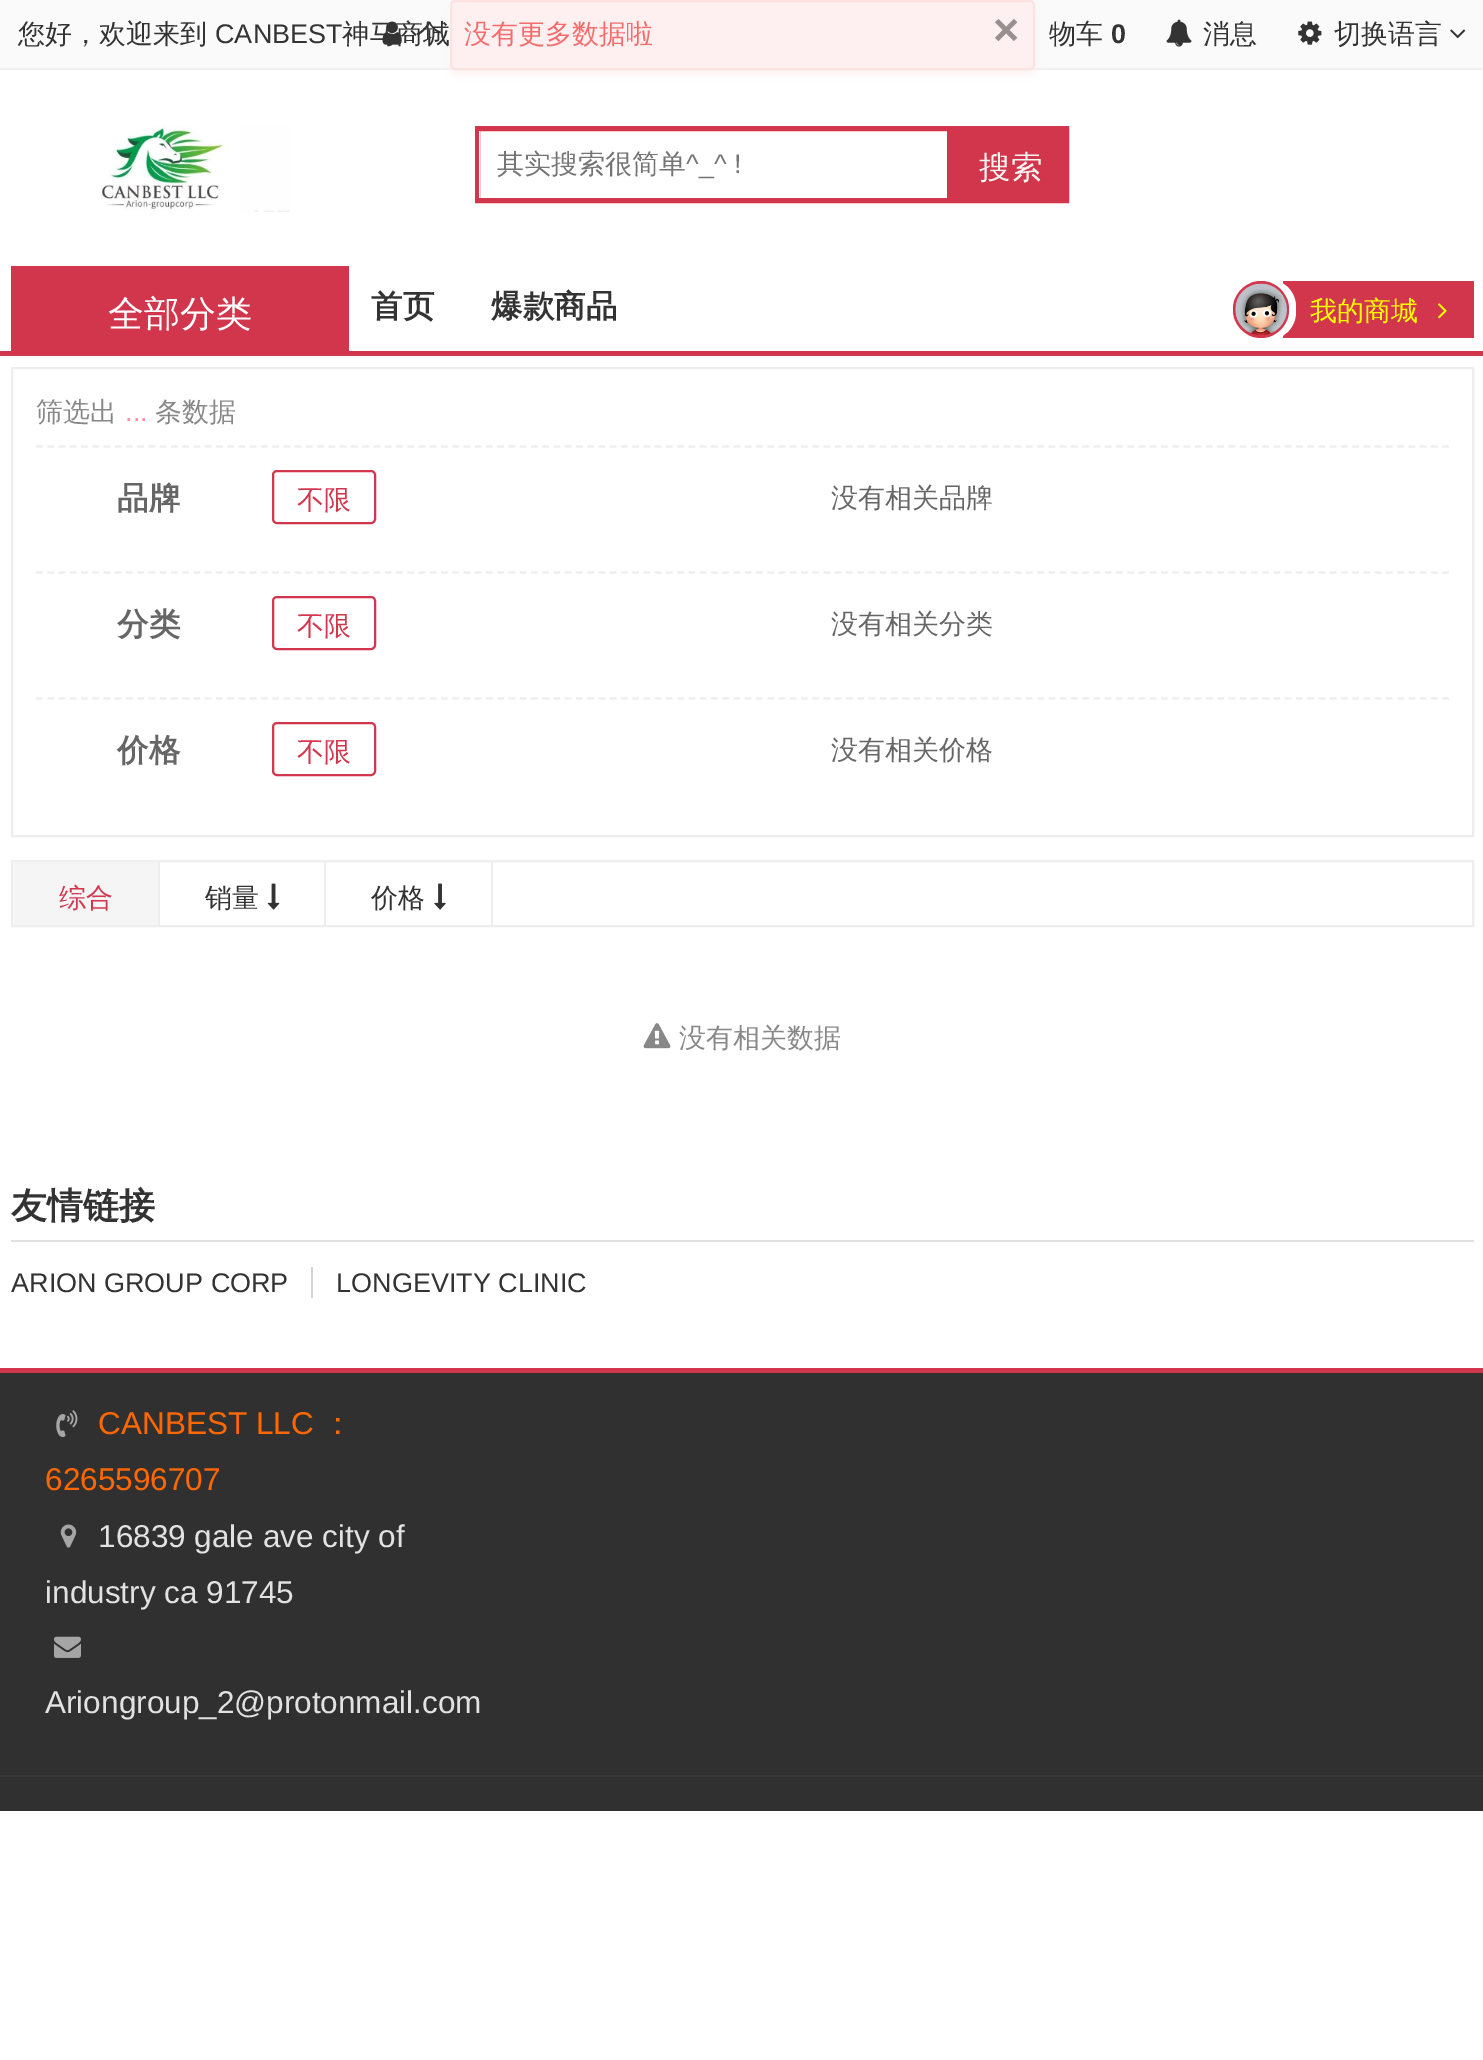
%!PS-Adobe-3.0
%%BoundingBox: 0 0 1483 2060
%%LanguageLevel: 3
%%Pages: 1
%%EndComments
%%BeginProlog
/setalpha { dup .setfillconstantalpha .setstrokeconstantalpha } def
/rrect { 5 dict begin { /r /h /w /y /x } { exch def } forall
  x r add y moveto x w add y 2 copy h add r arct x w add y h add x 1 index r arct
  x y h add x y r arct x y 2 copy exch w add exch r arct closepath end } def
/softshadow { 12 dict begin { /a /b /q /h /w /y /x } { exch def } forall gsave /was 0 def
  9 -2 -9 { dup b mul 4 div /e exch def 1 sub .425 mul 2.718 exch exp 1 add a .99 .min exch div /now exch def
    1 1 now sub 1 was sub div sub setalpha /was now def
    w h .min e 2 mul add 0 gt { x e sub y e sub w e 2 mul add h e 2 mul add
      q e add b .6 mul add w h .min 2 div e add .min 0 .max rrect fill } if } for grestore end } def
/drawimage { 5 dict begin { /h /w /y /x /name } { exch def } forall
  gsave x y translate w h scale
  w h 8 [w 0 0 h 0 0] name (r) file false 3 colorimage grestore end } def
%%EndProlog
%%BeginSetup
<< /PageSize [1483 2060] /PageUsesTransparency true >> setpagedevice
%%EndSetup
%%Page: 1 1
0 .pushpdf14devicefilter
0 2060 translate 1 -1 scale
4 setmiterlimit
1 setgray
0 0 1483 2060 rectfill
0.98 setgray
0 0 1483 68 rectfill
0.941 setgray
0 68 1483 2 rectfill
0.996 0.945 0.945 setrgbcolor
450 5 585 69 5 4.5 1 softshadow
0.996 0.941 0.941 setrgbcolor
451 1 583 68 4 rrect gsave fill grestore
0.992 0.886 0.886 setrgbcolor
2 setlinewidth
stroke
(images/2.raw) 1166 19 26 28 drawimage
(images/3.raw) 1298 21 24 24 drawimage
(images/4.raw) 1450 29 16 10 drawimage
(images/5.raw) 101 126 189 86 drawimage
0.824 0.212 0.298 setrgbcolor
5 setlinewidth
477.5 128.5 589 72 rectstroke
1 setgray
479 131 1 67 rectfill
0.824 0.212 0.298 setrgbcolor
947 131 117 67 rectfill
0 351 1483 5 rectfill
11 266 338 85 rectfill
1283 281 191 57 rectfill
1 setgray
1240 279 56 61 28 rrect fill
0.824 0.212 0.298 setrgbcolor
1233 281 56 57 28 rrect fill
(images/6.raw) 1235 283 52 52 drawimage
(images/7.raw) 1438 303 9 16 drawimage
0.933 setgray
2 setlinewidth
12 368 1461 468 rectstroke
2.2 setlinewidth
[6.75 4.5] 0 setdash
newpath 36 446.5 moveto 1449 446.5 lineto stroke
0.824 0.212 0.298 setrgbcolor
2 setlinewidth
[] 0 setdash
273 471 102 52 4 rrect stroke
0.933 setgray
2.2 setlinewidth
[6.75 4.5] 0 setdash
newpath 36 572.5 moveto 1449 572.5 lineto stroke
0.824 0.212 0.298 setrgbcolor
2 setlinewidth
[] 0 setdash
273 597 102 52 4 rrect stroke
0.933 setgray
2.2 setlinewidth
[6.75 4.5] 0 setdash
newpath 36 698.5 moveto 1449 698.5 lineto stroke
0.824 0.212 0.298 setrgbcolor
2 setlinewidth
[] 0 setdash
273 723 102 52 4 rrect stroke
0.933 setgray
12 861 1461 65 rectstroke
0.961 setgray
14 862 144 63 rectfill
0.933 setgray
158 862 2 63 rectfill
324 862 2 63 rectfill
(images/8.raw) 267 883 13 27 drawimage
491 862 2 63 rectfill
(images/9.raw) 434 883 12 27 drawimage
(images/10.raw) 643 1023 28 26 drawimage
0.89 0.878 0.878 setrgbcolor
11 1240 1463 2 rectfill
0.831 setgray
311 1267 2 31 rectfill
0.188 setgray
0 1373 1483 438 rectfill
0.824 0.212 0.298 setrgbcolor
0 1368 1483 5 rectfill
(images/11.raw) 56 1410 22 28 drawimage
(images/12.raw) 60 1524 17 24 drawimage
(images/13.raw) 54 1636 27 22 drawimage
0.22 setgray
0 1775 1483 2 rectfill
/WenQuanYiZenHei-Medium [27 0 0 -27 0 0] selectfont
0.961 0.424 0.424 setrgbcolor
464 43 moveto (没有更多数据啦) show
/LiberationSans-Bold [45 0 0 -45 0 0] selectfont
0.596 0.565 0.565 setrgbcolor
993 45 moveto (×) show
/WenQuanYiZenHei-Medium [27 0 0 -27 0 0] selectfont
0.2 setgray
18 43 moveto (您好，欢迎来到) show
/LiberationSans-Regular [27 0 0 -27 0 0] selectfont
215 43 moveto (CANBEST) show
/WenQuanYiZenHei-Medium [27 0 0 -27 0 0] selectfont
342 43 moveto (神马商城) show
(images/1.raw) 382 21 20 24 drawimage
416 43 moveto (个) show
1049 43 moveto (物车) show
/LiberationSans-Bold [27 0 0 -27 0 0] selectfont
1111 43 moveto (0) show
/WenQuanYiZenHei-Medium [27 0 0 -27 0 0] selectfont
1203 43 moveto (消息) show
1334 43 moveto (切换语言) show
0.459 setgray
497 173 moveto (其实搜索很简单) show
/LiberationSans-Regular [27 0 0 -27 0 0] selectfont
686 173 moveto (^_^ !) show
/WenQuanYiZenHei-Medium [31.5 0 0 -31.5 0 0] selectfont
0.961 0.961 0.949 setrgbcolor
979 178 moveto (搜索) show
/WenQuanYiZenHei-Medium [36 0 0 -36 0 0] selectfont
1 setgray
108 326 moveto (全部分类) show
/WenQuanYiZenHei-Bold [31.5 0 0 -31.5 0 0] selectfont
0.2 setgray
371 317 moveto (首页) show
491 317 moveto (爆款商品) show
/WenQuanYiZenHei-Medium [27 0 0 -27 0 0] selectfont
0.988 1 0 setrgbcolor
1310 320 moveto (我的商城) show
0.533 setgray
36 421 moveto (筛选出) show
/LiberationSans-Regular [27 0 0 -27 0 0] selectfont
0.996 0.565 0.627 setrgbcolor
125 421 moveto (...) show
/WenQuanYiZenHei-Medium [27 0 0 -27 0 0] selectfont
0.533 setgray
155 421 moveto (条数据) show
/WenQuanYiZenHei-Bold [31.5 0 0 -31.5 0 0] selectfont
0.4 setgray
117 509 moveto (品牌) show
/WenQuanYiZenHei-Medium [27 0 0 -27 0 0] selectfont
0.824 0.212 0.298 setrgbcolor
297 509 moveto (不限) show
0.4 setgray
831 507 moveto (没有相关品牌) show
/WenQuanYiZenHei-Bold [31.5 0 0 -31.5 0 0] selectfont
117 635 moveto (分类) show
/WenQuanYiZenHei-Medium [27 0 0 -27 0 0] selectfont
0.824 0.212 0.298 setrgbcolor
297 635 moveto (不限) show
0.4 setgray
831 633 moveto (没有相关分类) show
/WenQuanYiZenHei-Bold [31.5 0 0 -31.5 0 0] selectfont
117 761 moveto (价格) show
/WenQuanYiZenHei-Medium [27 0 0 -27 0 0] selectfont
0.824 0.212 0.298 setrgbcolor
297 761 moveto (不限) show
0.4 setgray
831 759 moveto (没有相关价格) show
0.824 0.212 0.298 setrgbcolor
59 907 moveto (综合) show
0.2 setgray
205 907 moveto (销量) show
371 907 moveto (价格) show
0.533 setgray
679 1047 moveto (没有相关数据) show
/WenQuanYiZenHei-Bold [36 0 0 -36 0 0] selectfont
0.2 setgray
11 1218 moveto (友情链接) show
/LiberationSans-Regular [27 0 0 -27 0 0] selectfont
11 1292 moveto (ARION GROUP CORP) show
336 1292 moveto (LONGEVITY CLINIC) show
/LiberationSans-Regular [31.5 0 0 -31.5 0 0] selectfont
1 0.404 0 setrgbcolor
98 1434 moveto (CANBEST LLC) show
/WenQuanYiZenHei-Medium [31.5 0 0 -31.5 0 0] selectfont
322 1434 moveto (：) show
/LiberationSans-Regular [31.5 0 0 -31.5 0 0] selectfont
45 1490 moveto (6265596707) show
0.886 setgray
98 1547 moveto (16839 gale ave city of) show
45 1603 moveto (industry ca 91745) show
45 1713 moveto (Ariongroup_2@protonmail.com) show
.poppdf14devicefilter showpage
%%EOF
